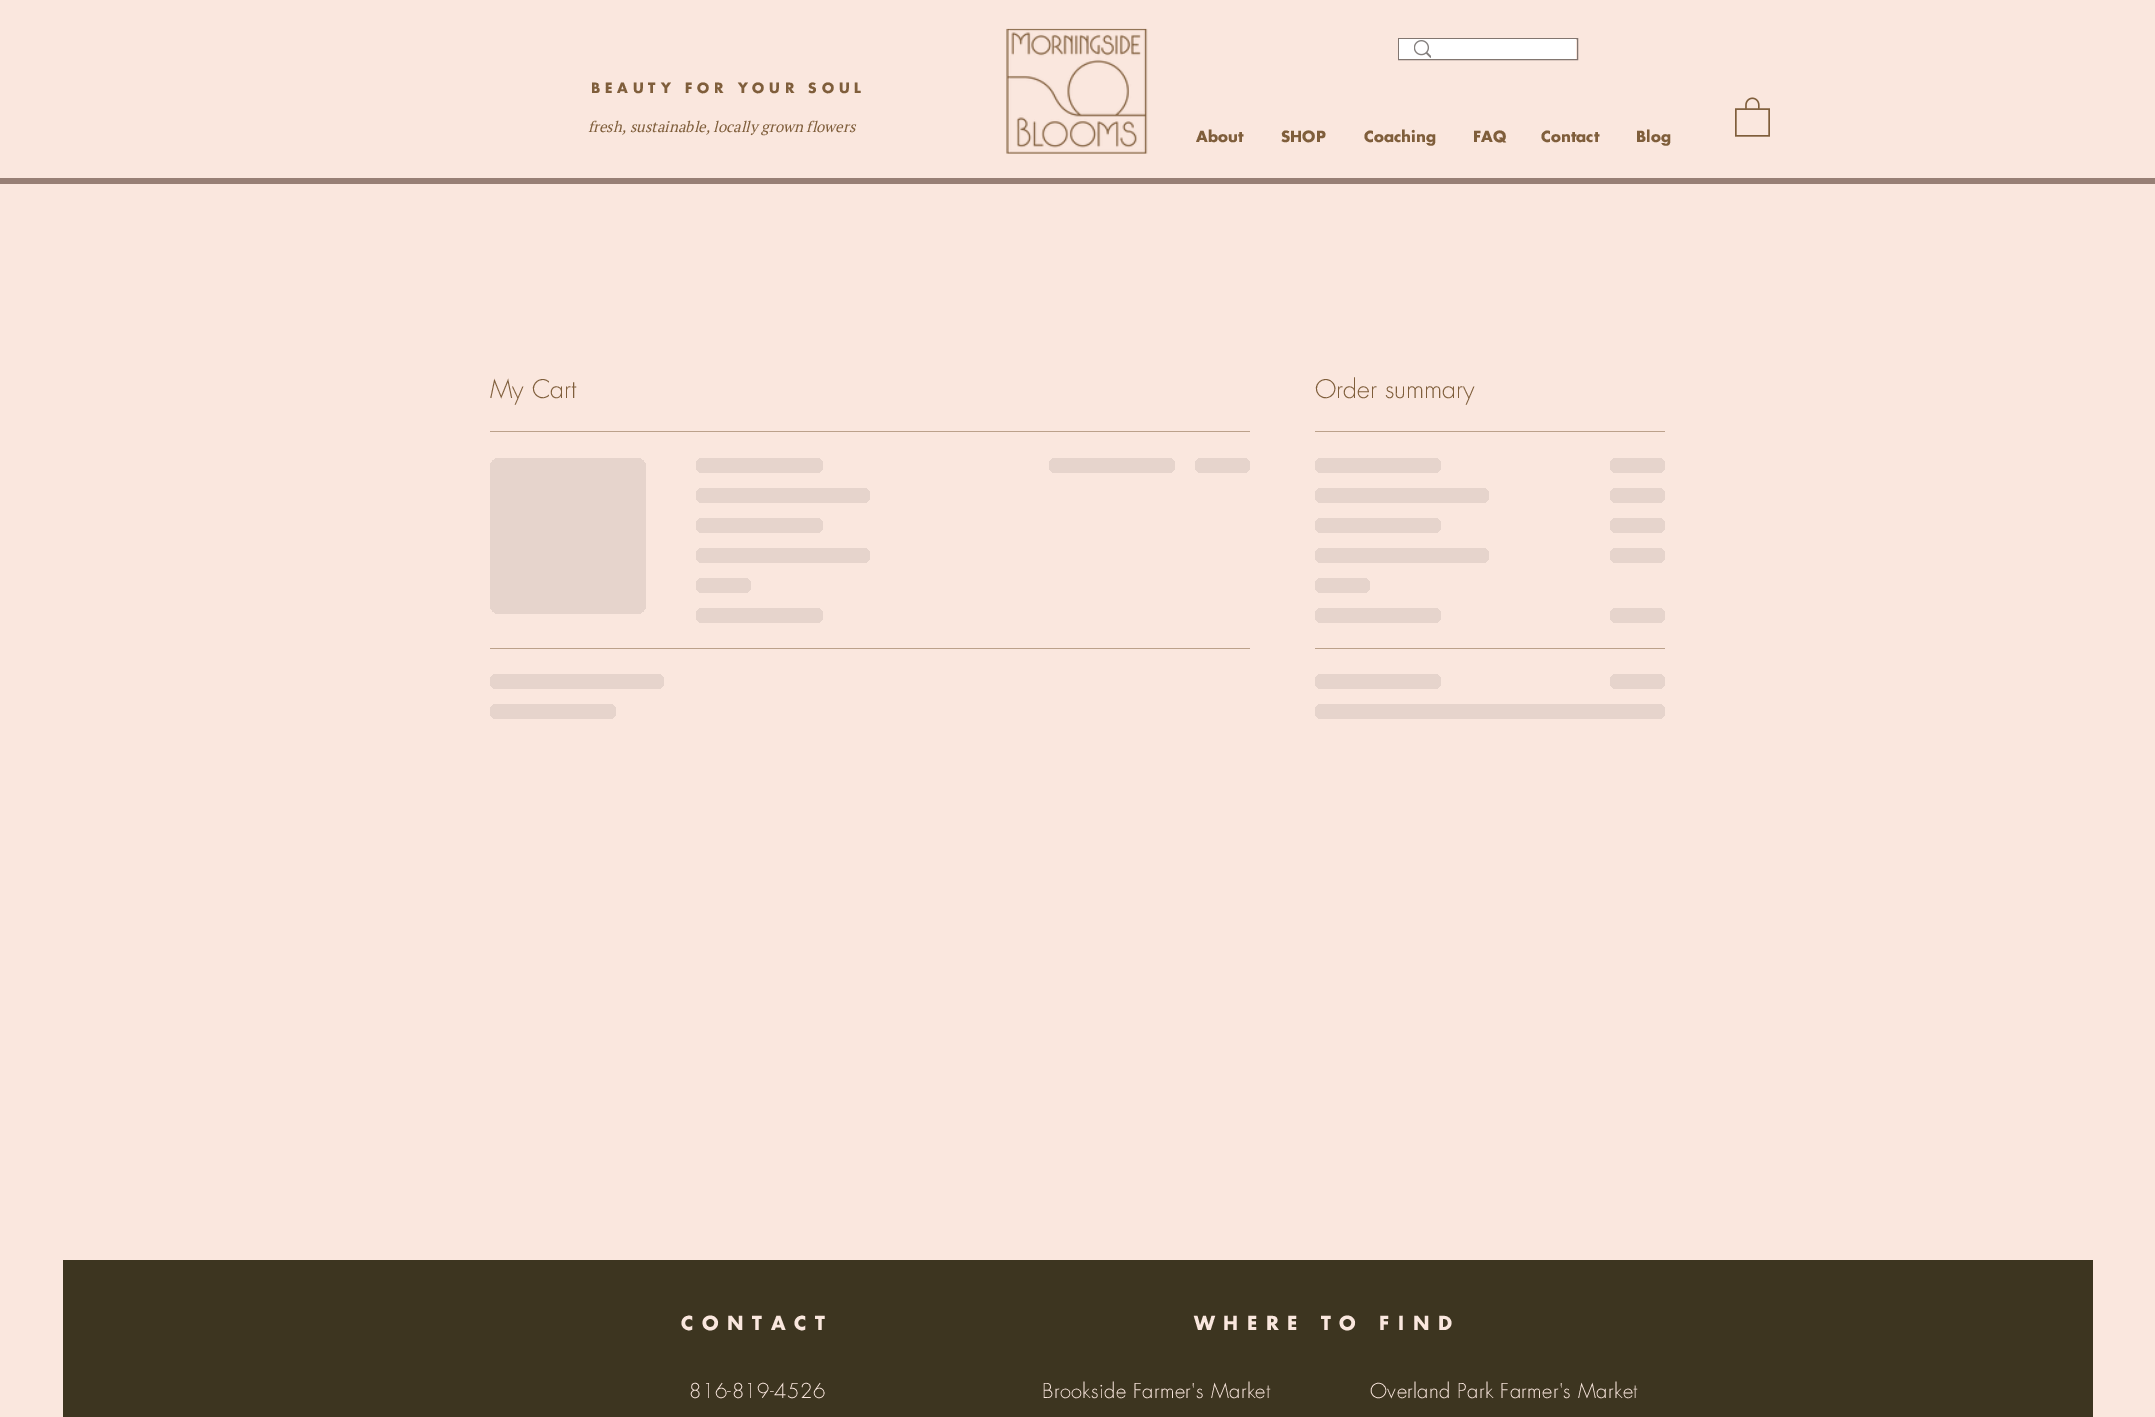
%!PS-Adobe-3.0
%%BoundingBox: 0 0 2155 1417
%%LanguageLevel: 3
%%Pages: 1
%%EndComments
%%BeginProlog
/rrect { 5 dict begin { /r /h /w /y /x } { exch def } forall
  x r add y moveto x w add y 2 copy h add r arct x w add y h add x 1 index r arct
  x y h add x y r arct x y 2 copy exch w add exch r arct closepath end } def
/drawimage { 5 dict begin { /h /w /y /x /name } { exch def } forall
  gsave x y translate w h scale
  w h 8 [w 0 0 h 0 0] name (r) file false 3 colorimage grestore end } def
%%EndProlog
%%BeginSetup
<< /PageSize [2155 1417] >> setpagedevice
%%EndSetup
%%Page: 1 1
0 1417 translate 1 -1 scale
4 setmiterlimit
0.98 0.906 0.871 setrgbcolor
0 0 2155 1417 rectfill
(images/1.raw) 1006 28 142 126 drawimage
0.51 0.463 0.439 setrgbcolor
1398.5 38.5 179 21 rectstroke
1 setgray
1399 39 177 20 rectfill
(images/2.raw) 1414 40 17 18 drawimage
(images/3.raw) 1735 97 35 40 drawimage
0.592 0.498 0.459 setrgbcolor
0 178 2155 6 rectfill
0.733 0.631 0.545 setrgbcolor
490 431 760 1 rectfill
gsave 490 458 156 156 10 rrect clip newpath
<< /ShadingType 2 /ColorSpace /DeviceRGB /Coords [490 536 1115 536] /Extend [true true] /Function << /FunctionType 3 /Domain [0 1] /Functions [<< /FunctionType 2 /Domain [0 1] /C0 [0.902 0.831 0.8] /C1 [0.902 0.831 0.8] /N 1 >> << /FunctionType 2 /Domain [0 1] /C0 [0.902 0.831 0.8] /C1 [0.824 0.757 0.725] /N 1 >> << /FunctionType 2 /Domain [0 1] /C0 [0.824 0.757 0.725] /C1 [0.902 0.831 0.8] /N 1 >> << /FunctionType 2 /Domain [0 1] /C0 [0.902 0.831 0.8] /C1 [0.902 0.831 0.8] /N 1 >>] /Bounds [0.25 0.37 0.63] /Encode [0 1 0 1 0 1 0 1] >> >> shfill grestore
gsave 696 458 127 15 7.5 rrect clip newpath
<< /ShadingType 2 /ColorSpace /DeviceRGB /Coords [696 465 1201 465] /Extend [true true] /Function << /FunctionType 3 /Domain [0 1] /Functions [<< /FunctionType 2 /Domain [0 1] /C0 [0.902 0.831 0.8] /C1 [0.902 0.831 0.8] /N 1 >> << /FunctionType 2 /Domain [0 1] /C0 [0.902 0.831 0.8] /C1 [0.824 0.757 0.725] /N 1 >> << /FunctionType 2 /Domain [0 1] /C0 [0.824 0.757 0.725] /C1 [0.902 0.831 0.8] /N 1 >> << /FunctionType 2 /Domain [0 1] /C0 [0.902 0.831 0.8] /C1 [0.902 0.831 0.8] /N 1 >>] /Bounds [0.25 0.37 0.63] /Encode [0 1 0 1 0 1 0 1] >> >> shfill grestore
gsave 696 488 174 15 7.5 rrect clip newpath
<< /ShadingType 2 /ColorSpace /DeviceRGB /Coords [696 495 1391 495] /Extend [true true] /Function << /FunctionType 3 /Domain [0 1] /Functions [<< /FunctionType 2 /Domain [0 1] /C0 [0.902 0.831 0.8] /C1 [0.902 0.831 0.8] /N 1 >> << /FunctionType 2 /Domain [0 1] /C0 [0.902 0.831 0.8] /C1 [0.824 0.757 0.725] /N 1 >> << /FunctionType 2 /Domain [0 1] /C0 [0.824 0.757 0.725] /C1 [0.902 0.831 0.8] /N 1 >> << /FunctionType 2 /Domain [0 1] /C0 [0.902 0.831 0.8] /C1 [0.902 0.831 0.8] /N 1 >>] /Bounds [0.25 0.37 0.63] /Encode [0 1 0 1 0 1 0 1] >> >> shfill grestore
gsave 696 518 127 15 7.5 rrect clip newpath
<< /ShadingType 2 /ColorSpace /DeviceRGB /Coords [696 525 1201 525] /Extend [true true] /Function << /FunctionType 3 /Domain [0 1] /Functions [<< /FunctionType 2 /Domain [0 1] /C0 [0.902 0.831 0.8] /C1 [0.902 0.831 0.8] /N 1 >> << /FunctionType 2 /Domain [0 1] /C0 [0.902 0.831 0.8] /C1 [0.824 0.757 0.725] /N 1 >> << /FunctionType 2 /Domain [0 1] /C0 [0.824 0.757 0.725] /C1 [0.902 0.831 0.8] /N 1 >> << /FunctionType 2 /Domain [0 1] /C0 [0.902 0.831 0.8] /C1 [0.902 0.831 0.8] /N 1 >>] /Bounds [0.25 0.37 0.63] /Encode [0 1 0 1 0 1 0 1] >> >> shfill grestore
gsave 696 548 174 15 7.5 rrect clip newpath
<< /ShadingType 2 /ColorSpace /DeviceRGB /Coords [696 555 1391 555] /Extend [true true] /Function << /FunctionType 3 /Domain [0 1] /Functions [<< /FunctionType 2 /Domain [0 1] /C0 [0.902 0.831 0.8] /C1 [0.902 0.831 0.8] /N 1 >> << /FunctionType 2 /Domain [0 1] /C0 [0.902 0.831 0.8] /C1 [0.824 0.757 0.725] /N 1 >> << /FunctionType 2 /Domain [0 1] /C0 [0.824 0.757 0.725] /C1 [0.902 0.831 0.8] /N 1 >> << /FunctionType 2 /Domain [0 1] /C0 [0.902 0.831 0.8] /C1 [0.902 0.831 0.8] /N 1 >>] /Bounds [0.25 0.37 0.63] /Encode [0 1 0 1 0 1 0 1] >> >> shfill grestore
gsave 696 578 55 15 7.5 rrect clip newpath
<< /ShadingType 2 /ColorSpace /DeviceRGB /Coords [696 585 916 585] /Extend [true true] /Function << /FunctionType 3 /Domain [0 1] /Functions [<< /FunctionType 2 /Domain [0 1] /C0 [0.902 0.831 0.8] /C1 [0.902 0.831 0.8] /N 1 >> << /FunctionType 2 /Domain [0 1] /C0 [0.902 0.831 0.8] /C1 [0.824 0.757 0.725] /N 1 >> << /FunctionType 2 /Domain [0 1] /C0 [0.824 0.757 0.725] /C1 [0.902 0.831 0.8] /N 1 >> << /FunctionType 2 /Domain [0 1] /C0 [0.902 0.831 0.8] /C1 [0.902 0.831 0.8] /N 1 >>] /Bounds [0.25 0.37 0.63] /Encode [0 1 0 1 0 1 0 1] >> >> shfill grestore
gsave 696 608 127 15 7.5 rrect clip newpath
<< /ShadingType 2 /ColorSpace /DeviceRGB /Coords [696 615 1201 615] /Extend [true true] /Function << /FunctionType 3 /Domain [0 1] /Functions [<< /FunctionType 2 /Domain [0 1] /C0 [0.902 0.831 0.8] /C1 [0.902 0.831 0.8] /N 1 >> << /FunctionType 2 /Domain [0 1] /C0 [0.902 0.831 0.8] /C1 [0.824 0.757 0.725] /N 1 >> << /FunctionType 2 /Domain [0 1] /C0 [0.824 0.757 0.725] /C1 [0.902 0.831 0.8] /N 1 >> << /FunctionType 2 /Domain [0 1] /C0 [0.902 0.831 0.8] /C1 [0.902 0.831 0.8] /N 1 >>] /Bounds [0.25 0.37 0.63] /Encode [0 1 0 1 0 1 0 1] >> >> shfill grestore
gsave 1049 458 126 15 7.5 rrect clip newpath
<< /ShadingType 2 /ColorSpace /DeviceRGB /Coords [1049 465 1554 465] /Extend [true true] /Function << /FunctionType 3 /Domain [0 1] /Functions [<< /FunctionType 2 /Domain [0 1] /C0 [0.902 0.831 0.8] /C1 [0.902 0.831 0.8] /N 1 >> << /FunctionType 2 /Domain [0 1] /C0 [0.902 0.831 0.8] /C1 [0.824 0.757 0.725] /N 1 >> << /FunctionType 2 /Domain [0 1] /C0 [0.824 0.757 0.725] /C1 [0.902 0.831 0.8] /N 1 >> << /FunctionType 2 /Domain [0 1] /C0 [0.902 0.831 0.8] /C1 [0.902 0.831 0.8] /N 1 >>] /Bounds [0.25 0.37 0.63] /Encode [0 1 0 1 0 1 0 1] >> >> shfill grestore
gsave 1195 458 55 15 7.5 rrect clip newpath
<< /ShadingType 2 /ColorSpace /DeviceRGB /Coords [1195 465 1415 465] /Extend [true true] /Function << /FunctionType 3 /Domain [0 1] /Functions [<< /FunctionType 2 /Domain [0 1] /C0 [0.902 0.831 0.8] /C1 [0.902 0.831 0.8] /N 1 >> << /FunctionType 2 /Domain [0 1] /C0 [0.902 0.831 0.8] /C1 [0.824 0.757 0.725] /N 1 >> << /FunctionType 2 /Domain [0 1] /C0 [0.824 0.757 0.725] /C1 [0.902 0.831 0.8] /N 1 >> << /FunctionType 2 /Domain [0 1] /C0 [0.902 0.831 0.8] /C1 [0.902 0.831 0.8] /N 1 >>] /Bounds [0.25 0.37 0.63] /Encode [0 1 0 1 0 1 0 1] >> >> shfill grestore
490 648 760 1 rectfill
gsave 490 674 174 15 7.5 rrect clip newpath
<< /ShadingType 2 /ColorSpace /DeviceRGB /Coords [490 681 1185 681] /Extend [true true] /Function << /FunctionType 3 /Domain [0 1] /Functions [<< /FunctionType 2 /Domain [0 1] /C0 [0.902 0.831 0.8] /C1 [0.902 0.831 0.8] /N 1 >> << /FunctionType 2 /Domain [0 1] /C0 [0.902 0.831 0.8] /C1 [0.824 0.757 0.725] /N 1 >> << /FunctionType 2 /Domain [0 1] /C0 [0.824 0.757 0.725] /C1 [0.902 0.831 0.8] /N 1 >> << /FunctionType 2 /Domain [0 1] /C0 [0.902 0.831 0.8] /C1 [0.902 0.831 0.8] /N 1 >>] /Bounds [0.25 0.37 0.63] /Encode [0 1 0 1 0 1 0 1] >> >> shfill grestore
gsave 490 704 126 15 7.5 rrect clip newpath
<< /ShadingType 2 /ColorSpace /DeviceRGB /Coords [490 711 995 711] /Extend [true true] /Function << /FunctionType 3 /Domain [0 1] /Functions [<< /FunctionType 2 /Domain [0 1] /C0 [0.902 0.831 0.8] /C1 [0.902 0.831 0.8] /N 1 >> << /FunctionType 2 /Domain [0 1] /C0 [0.902 0.831 0.8] /C1 [0.824 0.757 0.725] /N 1 >> << /FunctionType 2 /Domain [0 1] /C0 [0.824 0.757 0.725] /C1 [0.902 0.831 0.8] /N 1 >> << /FunctionType 2 /Domain [0 1] /C0 [0.902 0.831 0.8] /C1 [0.902 0.831 0.8] /N 1 >>] /Bounds [0.25 0.37 0.63] /Encode [0 1 0 1 0 1 0 1] >> >> shfill grestore
1315 431 350 1 rectfill
gsave 1315 458 126 15 7.5 rrect clip newpath
<< /ShadingType 2 /ColorSpace /DeviceRGB /Coords [1315 465 1820 465] /Extend [true true] /Function << /FunctionType 3 /Domain [0 1] /Functions [<< /FunctionType 2 /Domain [0 1] /C0 [0.902 0.831 0.8] /C1 [0.902 0.831 0.8] /N 1 >> << /FunctionType 2 /Domain [0 1] /C0 [0.902 0.831 0.8] /C1 [0.824 0.757 0.725] /N 1 >> << /FunctionType 2 /Domain [0 1] /C0 [0.824 0.757 0.725] /C1 [0.902 0.831 0.8] /N 1 >> << /FunctionType 2 /Domain [0 1] /C0 [0.902 0.831 0.8] /C1 [0.902 0.831 0.8] /N 1 >>] /Bounds [0.25 0.37 0.63] /Encode [0 1 0 1 0 1 0 1] >> >> shfill grestore
gsave 1610 458 55 15 7.5 rrect clip newpath
<< /ShadingType 2 /ColorSpace /DeviceRGB /Coords [1610 465 1830 465] /Extend [true true] /Function << /FunctionType 3 /Domain [0 1] /Functions [<< /FunctionType 2 /Domain [0 1] /C0 [0.902 0.831 0.8] /C1 [0.902 0.831 0.8] /N 1 >> << /FunctionType 2 /Domain [0 1] /C0 [0.902 0.831 0.8] /C1 [0.824 0.757 0.725] /N 1 >> << /FunctionType 2 /Domain [0 1] /C0 [0.824 0.757 0.725] /C1 [0.902 0.831 0.8] /N 1 >> << /FunctionType 2 /Domain [0 1] /C0 [0.902 0.831 0.8] /C1 [0.902 0.831 0.8] /N 1 >>] /Bounds [0.25 0.37 0.63] /Encode [0 1 0 1 0 1 0 1] >> >> shfill grestore
gsave 1315 488 174 15 7.5 rrect clip newpath
<< /ShadingType 2 /ColorSpace /DeviceRGB /Coords [1315 495 2010 495] /Extend [true true] /Function << /FunctionType 3 /Domain [0 1] /Functions [<< /FunctionType 2 /Domain [0 1] /C0 [0.902 0.831 0.8] /C1 [0.902 0.831 0.8] /N 1 >> << /FunctionType 2 /Domain [0 1] /C0 [0.902 0.831 0.8] /C1 [0.824 0.757 0.725] /N 1 >> << /FunctionType 2 /Domain [0 1] /C0 [0.824 0.757 0.725] /C1 [0.902 0.831 0.8] /N 1 >> << /FunctionType 2 /Domain [0 1] /C0 [0.902 0.831 0.8] /C1 [0.902 0.831 0.8] /N 1 >>] /Bounds [0.25 0.37 0.63] /Encode [0 1 0 1 0 1 0 1] >> >> shfill grestore
gsave 1610 488 55 15 7.5 rrect clip newpath
<< /ShadingType 2 /ColorSpace /DeviceRGB /Coords [1610 495 1830 495] /Extend [true true] /Function << /FunctionType 3 /Domain [0 1] /Functions [<< /FunctionType 2 /Domain [0 1] /C0 [0.902 0.831 0.8] /C1 [0.902 0.831 0.8] /N 1 >> << /FunctionType 2 /Domain [0 1] /C0 [0.902 0.831 0.8] /C1 [0.824 0.757 0.725] /N 1 >> << /FunctionType 2 /Domain [0 1] /C0 [0.824 0.757 0.725] /C1 [0.902 0.831 0.8] /N 1 >> << /FunctionType 2 /Domain [0 1] /C0 [0.902 0.831 0.8] /C1 [0.902 0.831 0.8] /N 1 >>] /Bounds [0.25 0.37 0.63] /Encode [0 1 0 1 0 1 0 1] >> >> shfill grestore
gsave 1315 518 126 15 7.5 rrect clip newpath
<< /ShadingType 2 /ColorSpace /DeviceRGB /Coords [1315 525 1820 525] /Extend [true true] /Function << /FunctionType 3 /Domain [0 1] /Functions [<< /FunctionType 2 /Domain [0 1] /C0 [0.902 0.831 0.8] /C1 [0.902 0.831 0.8] /N 1 >> << /FunctionType 2 /Domain [0 1] /C0 [0.902 0.831 0.8] /C1 [0.824 0.757 0.725] /N 1 >> << /FunctionType 2 /Domain [0 1] /C0 [0.824 0.757 0.725] /C1 [0.902 0.831 0.8] /N 1 >> << /FunctionType 2 /Domain [0 1] /C0 [0.902 0.831 0.8] /C1 [0.902 0.831 0.8] /N 1 >>] /Bounds [0.25 0.37 0.63] /Encode [0 1 0 1 0 1 0 1] >> >> shfill grestore
gsave 1610 518 55 15 7.5 rrect clip newpath
<< /ShadingType 2 /ColorSpace /DeviceRGB /Coords [1610 525 1830 525] /Extend [true true] /Function << /FunctionType 3 /Domain [0 1] /Functions [<< /FunctionType 2 /Domain [0 1] /C0 [0.902 0.831 0.8] /C1 [0.902 0.831 0.8] /N 1 >> << /FunctionType 2 /Domain [0 1] /C0 [0.902 0.831 0.8] /C1 [0.824 0.757 0.725] /N 1 >> << /FunctionType 2 /Domain [0 1] /C0 [0.824 0.757 0.725] /C1 [0.902 0.831 0.8] /N 1 >> << /FunctionType 2 /Domain [0 1] /C0 [0.902 0.831 0.8] /C1 [0.902 0.831 0.8] /N 1 >>] /Bounds [0.25 0.37 0.63] /Encode [0 1 0 1 0 1 0 1] >> >> shfill grestore
gsave 1315 548 174 15 7.5 rrect clip newpath
<< /ShadingType 2 /ColorSpace /DeviceRGB /Coords [1315 555 2010 555] /Extend [true true] /Function << /FunctionType 3 /Domain [0 1] /Functions [<< /FunctionType 2 /Domain [0 1] /C0 [0.902 0.831 0.8] /C1 [0.902 0.831 0.8] /N 1 >> << /FunctionType 2 /Domain [0 1] /C0 [0.902 0.831 0.8] /C1 [0.824 0.757 0.725] /N 1 >> << /FunctionType 2 /Domain [0 1] /C0 [0.824 0.757 0.725] /C1 [0.902 0.831 0.8] /N 1 >> << /FunctionType 2 /Domain [0 1] /C0 [0.902 0.831 0.8] /C1 [0.902 0.831 0.8] /N 1 >>] /Bounds [0.25 0.37 0.63] /Encode [0 1 0 1 0 1 0 1] >> >> shfill grestore
gsave 1610 548 55 15 7.5 rrect clip newpath
<< /ShadingType 2 /ColorSpace /DeviceRGB /Coords [1610 555 1830 555] /Extend [true true] /Function << /FunctionType 3 /Domain [0 1] /Functions [<< /FunctionType 2 /Domain [0 1] /C0 [0.902 0.831 0.8] /C1 [0.902 0.831 0.8] /N 1 >> << /FunctionType 2 /Domain [0 1] /C0 [0.902 0.831 0.8] /C1 [0.824 0.757 0.725] /N 1 >> << /FunctionType 2 /Domain [0 1] /C0 [0.824 0.757 0.725] /C1 [0.902 0.831 0.8] /N 1 >> << /FunctionType 2 /Domain [0 1] /C0 [0.902 0.831 0.8] /C1 [0.902 0.831 0.8] /N 1 >>] /Bounds [0.25 0.37 0.63] /Encode [0 1 0 1 0 1 0 1] >> >> shfill grestore
gsave 1315 578 55 15 7.5 rrect clip newpath
<< /ShadingType 2 /ColorSpace /DeviceRGB /Coords [1315 585 1535 585] /Extend [true true] /Function << /FunctionType 3 /Domain [0 1] /Functions [<< /FunctionType 2 /Domain [0 1] /C0 [0.902 0.831 0.8] /C1 [0.902 0.831 0.8] /N 1 >> << /FunctionType 2 /Domain [0 1] /C0 [0.902 0.831 0.8] /C1 [0.824 0.757 0.725] /N 1 >> << /FunctionType 2 /Domain [0 1] /C0 [0.824 0.757 0.725] /C1 [0.902 0.831 0.8] /N 1 >> << /FunctionType 2 /Domain [0 1] /C0 [0.902 0.831 0.8] /C1 [0.902 0.831 0.8] /N 1 >>] /Bounds [0.25 0.37 0.63] /Encode [0 1 0 1 0 1 0 1] >> >> shfill grestore
gsave 1315 608 126 15 7.5 rrect clip newpath
<< /ShadingType 2 /ColorSpace /DeviceRGB /Coords [1315 615 1820 615] /Extend [true true] /Function << /FunctionType 3 /Domain [0 1] /Functions [<< /FunctionType 2 /Domain [0 1] /C0 [0.902 0.831 0.8] /C1 [0.902 0.831 0.8] /N 1 >> << /FunctionType 2 /Domain [0 1] /C0 [0.902 0.831 0.8] /C1 [0.824 0.757 0.725] /N 1 >> << /FunctionType 2 /Domain [0 1] /C0 [0.824 0.757 0.725] /C1 [0.902 0.831 0.8] /N 1 >> << /FunctionType 2 /Domain [0 1] /C0 [0.902 0.831 0.8] /C1 [0.902 0.831 0.8] /N 1 >>] /Bounds [0.25 0.37 0.63] /Encode [0 1 0 1 0 1 0 1] >> >> shfill grestore
gsave 1610 608 55 15 7.5 rrect clip newpath
<< /ShadingType 2 /ColorSpace /DeviceRGB /Coords [1610 615 1830 615] /Extend [true true] /Function << /FunctionType 3 /Domain [0 1] /Functions [<< /FunctionType 2 /Domain [0 1] /C0 [0.902 0.831 0.8] /C1 [0.902 0.831 0.8] /N 1 >> << /FunctionType 2 /Domain [0 1] /C0 [0.902 0.831 0.8] /C1 [0.824 0.757 0.725] /N 1 >> << /FunctionType 2 /Domain [0 1] /C0 [0.824 0.757 0.725] /C1 [0.902 0.831 0.8] /N 1 >> << /FunctionType 2 /Domain [0 1] /C0 [0.902 0.831 0.8] /C1 [0.902 0.831 0.8] /N 1 >>] /Bounds [0.25 0.37 0.63] /Encode [0 1 0 1 0 1 0 1] >> >> shfill grestore
1315 648 350 1 rectfill
gsave 1315 674 126 15 7.5 rrect clip newpath
<< /ShadingType 2 /ColorSpace /DeviceRGB /Coords [1315 681 1820 681] /Extend [true true] /Function << /FunctionType 3 /Domain [0 1] /Functions [<< /FunctionType 2 /Domain [0 1] /C0 [0.902 0.831 0.8] /C1 [0.902 0.831 0.8] /N 1 >> << /FunctionType 2 /Domain [0 1] /C0 [0.902 0.831 0.8] /C1 [0.824 0.757 0.725] /N 1 >> << /FunctionType 2 /Domain [0 1] /C0 [0.824 0.757 0.725] /C1 [0.902 0.831 0.8] /N 1 >> << /FunctionType 2 /Domain [0 1] /C0 [0.902 0.831 0.8] /C1 [0.902 0.831 0.8] /N 1 >>] /Bounds [0.25 0.37 0.63] /Encode [0 1 0 1 0 1 0 1] >> >> shfill grestore
gsave 1610 674 55 15 7.5 rrect clip newpath
<< /ShadingType 2 /ColorSpace /DeviceRGB /Coords [1610 681 1830 681] /Extend [true true] /Function << /FunctionType 3 /Domain [0 1] /Functions [<< /FunctionType 2 /Domain [0 1] /C0 [0.902 0.831 0.8] /C1 [0.902 0.831 0.8] /N 1 >> << /FunctionType 2 /Domain [0 1] /C0 [0.902 0.831 0.8] /C1 [0.824 0.757 0.725] /N 1 >> << /FunctionType 2 /Domain [0 1] /C0 [0.824 0.757 0.725] /C1 [0.902 0.831 0.8] /N 1 >> << /FunctionType 2 /Domain [0 1] /C0 [0.902 0.831 0.8] /C1 [0.902 0.831 0.8] /N 1 >>] /Bounds [0.25 0.37 0.63] /Encode [0 1 0 1 0 1 0 1] >> >> shfill grestore
gsave 1315 704 350 15 7.5 rrect clip newpath
<< /ShadingType 2 /ColorSpace /DeviceRGB /Coords [1315 711 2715 711] /Extend [true true] /Function << /FunctionType 3 /Domain [0 1] /Functions [<< /FunctionType 2 /Domain [0 1] /C0 [0.902 0.831 0.8] /C1 [0.902 0.831 0.8] /N 1 >> << /FunctionType 2 /Domain [0 1] /C0 [0.902 0.831 0.8] /C1 [0.824 0.757 0.725] /N 1 >> << /FunctionType 2 /Domain [0 1] /C0 [0.824 0.757 0.725] /C1 [0.902 0.831 0.8] /N 1 >> << /FunctionType 2 /Domain [0 1] /C0 [0.902 0.831 0.8] /C1 [0.902 0.831 0.8] /N 1 >>] /Bounds [0.25 0.37 0.63] /Encode [0 1 0 1 0 1 0 1] >> >> shfill grestore
0.239 0.208 0.125 setrgbcolor
63 1260 2030 157 rectfill
/Futura-Bold [13.75 0 0 -13.75 0 0] selectfont
0.498 0.369 0.231 setrgbcolor
591 93 moveto 4.8 0 (BEAUTY FOR YOUR SOUL) ashow
/PTSerif-Italic [15 0 0 -15 0 0] selectfont
588 132 moveto (fresh, sustainable, locally grown flowers) show
/Futura-Bold [15 0 0 -15 0 0] selectfont
1196 142 moveto (About) show
1281 142 moveto (SHOP) show
1364 142 moveto (Coaching) show
1473 142 moveto (FAQ) show
1541 142 moveto (Contact) show
1636 142 moveto (Blog) show
/futura-Light [25 0 0 -25 0 0] selectfont
490 398 moveto (My Cart) show
1315 398 moveto (Order summary) show
/Futura-Bold [18.75 0 0 -18.75 0 0] selectfont
0.98 0.906 0.871 setrgbcolor
681 1330 moveto 8.5 0 (CONTACT) ashow
1194 1330 moveto 8.5 0 (WHERE TO FIND) ashow
/futura-Light [20 0 0 -20 0 0] selectfont
689 1398 moveto 0.4 0 (816-819-4526) ashow
1042 1398 moveto 0.4 0 (Brookside Farmer's Market) ashow
1370 1398 moveto 0.4 0 (Overland Park Farmer's Market) ashow
showpage
%%EOF
